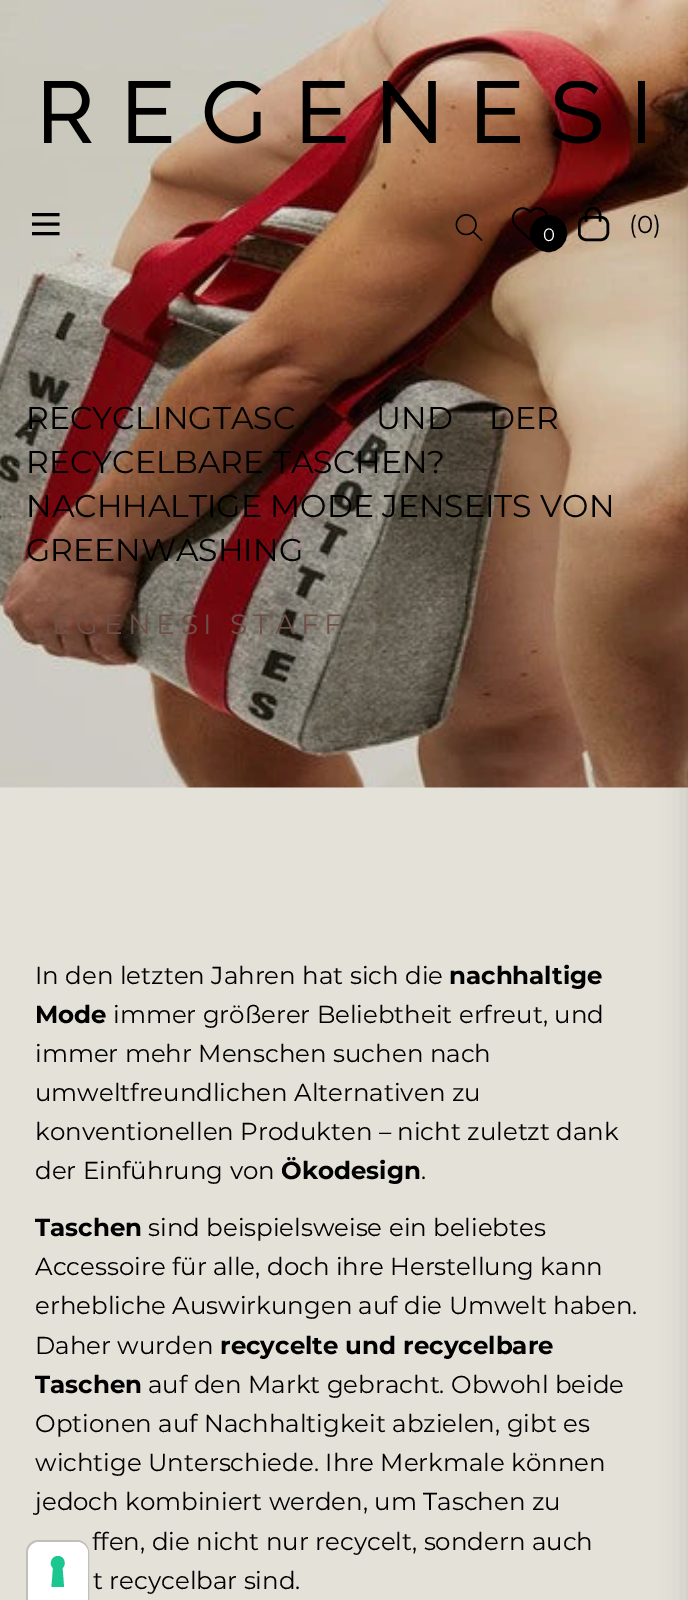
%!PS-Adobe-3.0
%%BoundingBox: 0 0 688 1600
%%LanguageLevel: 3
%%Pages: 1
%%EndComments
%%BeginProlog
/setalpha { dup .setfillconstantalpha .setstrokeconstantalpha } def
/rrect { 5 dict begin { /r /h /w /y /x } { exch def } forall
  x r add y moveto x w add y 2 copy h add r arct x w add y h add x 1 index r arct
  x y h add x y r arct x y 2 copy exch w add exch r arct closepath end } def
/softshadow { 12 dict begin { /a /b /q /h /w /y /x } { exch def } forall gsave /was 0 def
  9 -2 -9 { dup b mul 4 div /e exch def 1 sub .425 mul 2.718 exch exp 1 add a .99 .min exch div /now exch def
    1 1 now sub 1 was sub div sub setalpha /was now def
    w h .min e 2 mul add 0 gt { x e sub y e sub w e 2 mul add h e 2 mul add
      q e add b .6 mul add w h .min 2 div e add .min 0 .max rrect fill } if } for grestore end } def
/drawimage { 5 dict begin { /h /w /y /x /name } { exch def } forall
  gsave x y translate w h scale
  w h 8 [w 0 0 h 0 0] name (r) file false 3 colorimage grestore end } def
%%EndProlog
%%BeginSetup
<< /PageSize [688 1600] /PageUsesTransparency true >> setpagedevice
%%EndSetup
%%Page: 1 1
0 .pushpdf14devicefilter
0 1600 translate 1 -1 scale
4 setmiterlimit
0.894 0.882 0.851 setrgbcolor
0 0 688 1600 rectfill
0.902 setgray
0 787 688 1 rectfill
(images/4.raw) 0 0 688 788 drawimage
(images/1.raw) 44 81 601 63 drawimage
gsave
32 210 28 28 rectclip
0 setgray
3.1 setlinewidth
newpath 31.5 214.5 moveto 59.5 214.5 lineto 31.5 233.5 moveto 59.5 233.5 lineto closepath 31.5 224 moveto 59.5 224 lineto closepath stroke
grestore
(images/2.raw) 455 214 28 27 drawimage
(images/3.raw) 511 207 38 34 drawimage
0 setgray
newpath 548.5 233.5 17.5 0 360 arc closepath gsave fill grestore
2 setlinewidth
stroke
2.5 setlinewidth
579.25 217.25 28.5 22.5 6.75 rrect stroke
gsave
578 207 31 35 rectclip
2.6 setlinewidth
1 setlinecap
newpath 600 220.5 moveto 600 215 lineto 600 211.5 597 208 593 208 curveto 589.5 208 586 211.5 586 215 curveto 586 220.5 lineto stroke
grestore
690 14 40 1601 0 14 0.15 softshadow
0.15 setalpha
2 setlinewidth
newpath 38 1541 moveto 77 1541 lineto 83 1541 88 1546 88 1552 curveto 88 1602 lineto 27 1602 lineto 27 1552 lineto 27 1546 32 1541 38 1541 curveto closepath stroke
1 setalpha
1 setgray
newpath 39 1542 moveto 77 1542 lineto 83 1542 88 1547 88 1553 curveto 88 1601 lineto 28 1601 lineto 28 1553 lineto 28 1547 33 1542 39 1542 curveto closepath fill
0.11 0.776 0.569 setrgbcolor
newpath 58 1556 moveto 64 1556 67 1564 62.5 1568 curveto 64 1587 lineto 51.5 1587 lineto 53 1568 lineto 48.5 1564 51.5 1556 58 1556 curveto closepath eofill
/Montserrat-Regular [18 0 0 -18 0 0] selectfont
1 setgray
543 241 moveto (0) show
/Montserrat-Regular [24.5 0 0 -24.5 0 0] selectfont
0 setgray
629 233 moveto (\(0\)) show
/Montserrat-Regular [31.5 0 0 -31.5 0 0] selectfont
26 429 moveto (RECYCLINGTASC) show
376 429 moveto (UND) show
489 429 moveto (DER) show
26 473 moveto (RECYCELBARE TASCHEN?) show
26 517 moveto (NACHHALTIGE MODE JENSEITS VON) show
26 561 moveto (GREENWASHING) show
/Montserrat-Regular [28 0 0 -28 0 0] selectfont
0.431 0.314 0.275 setrgbcolor
52 634 moveto 5.6 0 (EGENESI STAFF) ashow
/Montserrat-Regular [24.5 0 0 -24.5 0 0] selectfont
0 setgray
35 984 moveto (In den letzten Jahren hat sich die) show
/Montserrat-Bold [24.5 0 0 -24.5 0 0] selectfont
449 984 moveto (nachhaltige) show
35 1023 moveto (Mode) show
/Montserrat-Regular [24.5 0 0 -24.5 0 0] selectfont
113 1023 moveto (immer größerer Beliebtheit erfreut, und) show
35 1062 moveto (immer mehr Menschen suchen nach) show
35 1101 moveto (umweltfreundlichen Alternativen zu) show
35 1140 moveto (konventionellen Produkten – nicht zuletzt dank) show
35 1179 moveto (der Einführung von) show
/Montserrat-Bold [24.5 0 0 -24.5 0 0] selectfont
281 1179 moveto (Ökodesign) show
/Montserrat-Regular [24.5 0 0 -24.5 0 0] selectfont
421 1179 moveto (.) show
/Montserrat-Bold [24.5 0 0 -24.5 0 0] selectfont
35 1236 moveto (Taschen) show
/Montserrat-Regular [24.5 0 0 -24.5 0 0] selectfont
148 1236 moveto (sind beispielsweise ein beliebtes) show
35 1275 moveto (Accessoire für alle, doch ihre Herstellung kann) show
35 1314 moveto (erhebliche Auswirkungen auf die Umwelt haben.) show
35 1354 moveto (Daher wurden) show
/Montserrat-Bold [24.5 0 0 -24.5 0 0] selectfont
220 1354 moveto (recycelte und recycelbare) show
35 1393 moveto (Taschen) show
/Montserrat-Regular [24.5 0 0 -24.5 0 0] selectfont
148 1393 moveto (auf den Markt gebracht. Obwohl beide) show
35 1432 moveto (Optionen auf Nachhaltigkeit abzielen, gibt es) show
35 1471 moveto (wichtige Unterschiede. Ihre Merkmale können) show
35 1510 moveto (jedoch kombiniert werden, um Taschen zu) show
92 1550 moveto (ffen, die nicht nur recycelt, sondern auch) show
93 1589 moveto (t recycelbar sind.) show
.poppdf14devicefilter showpage
%%EOF
